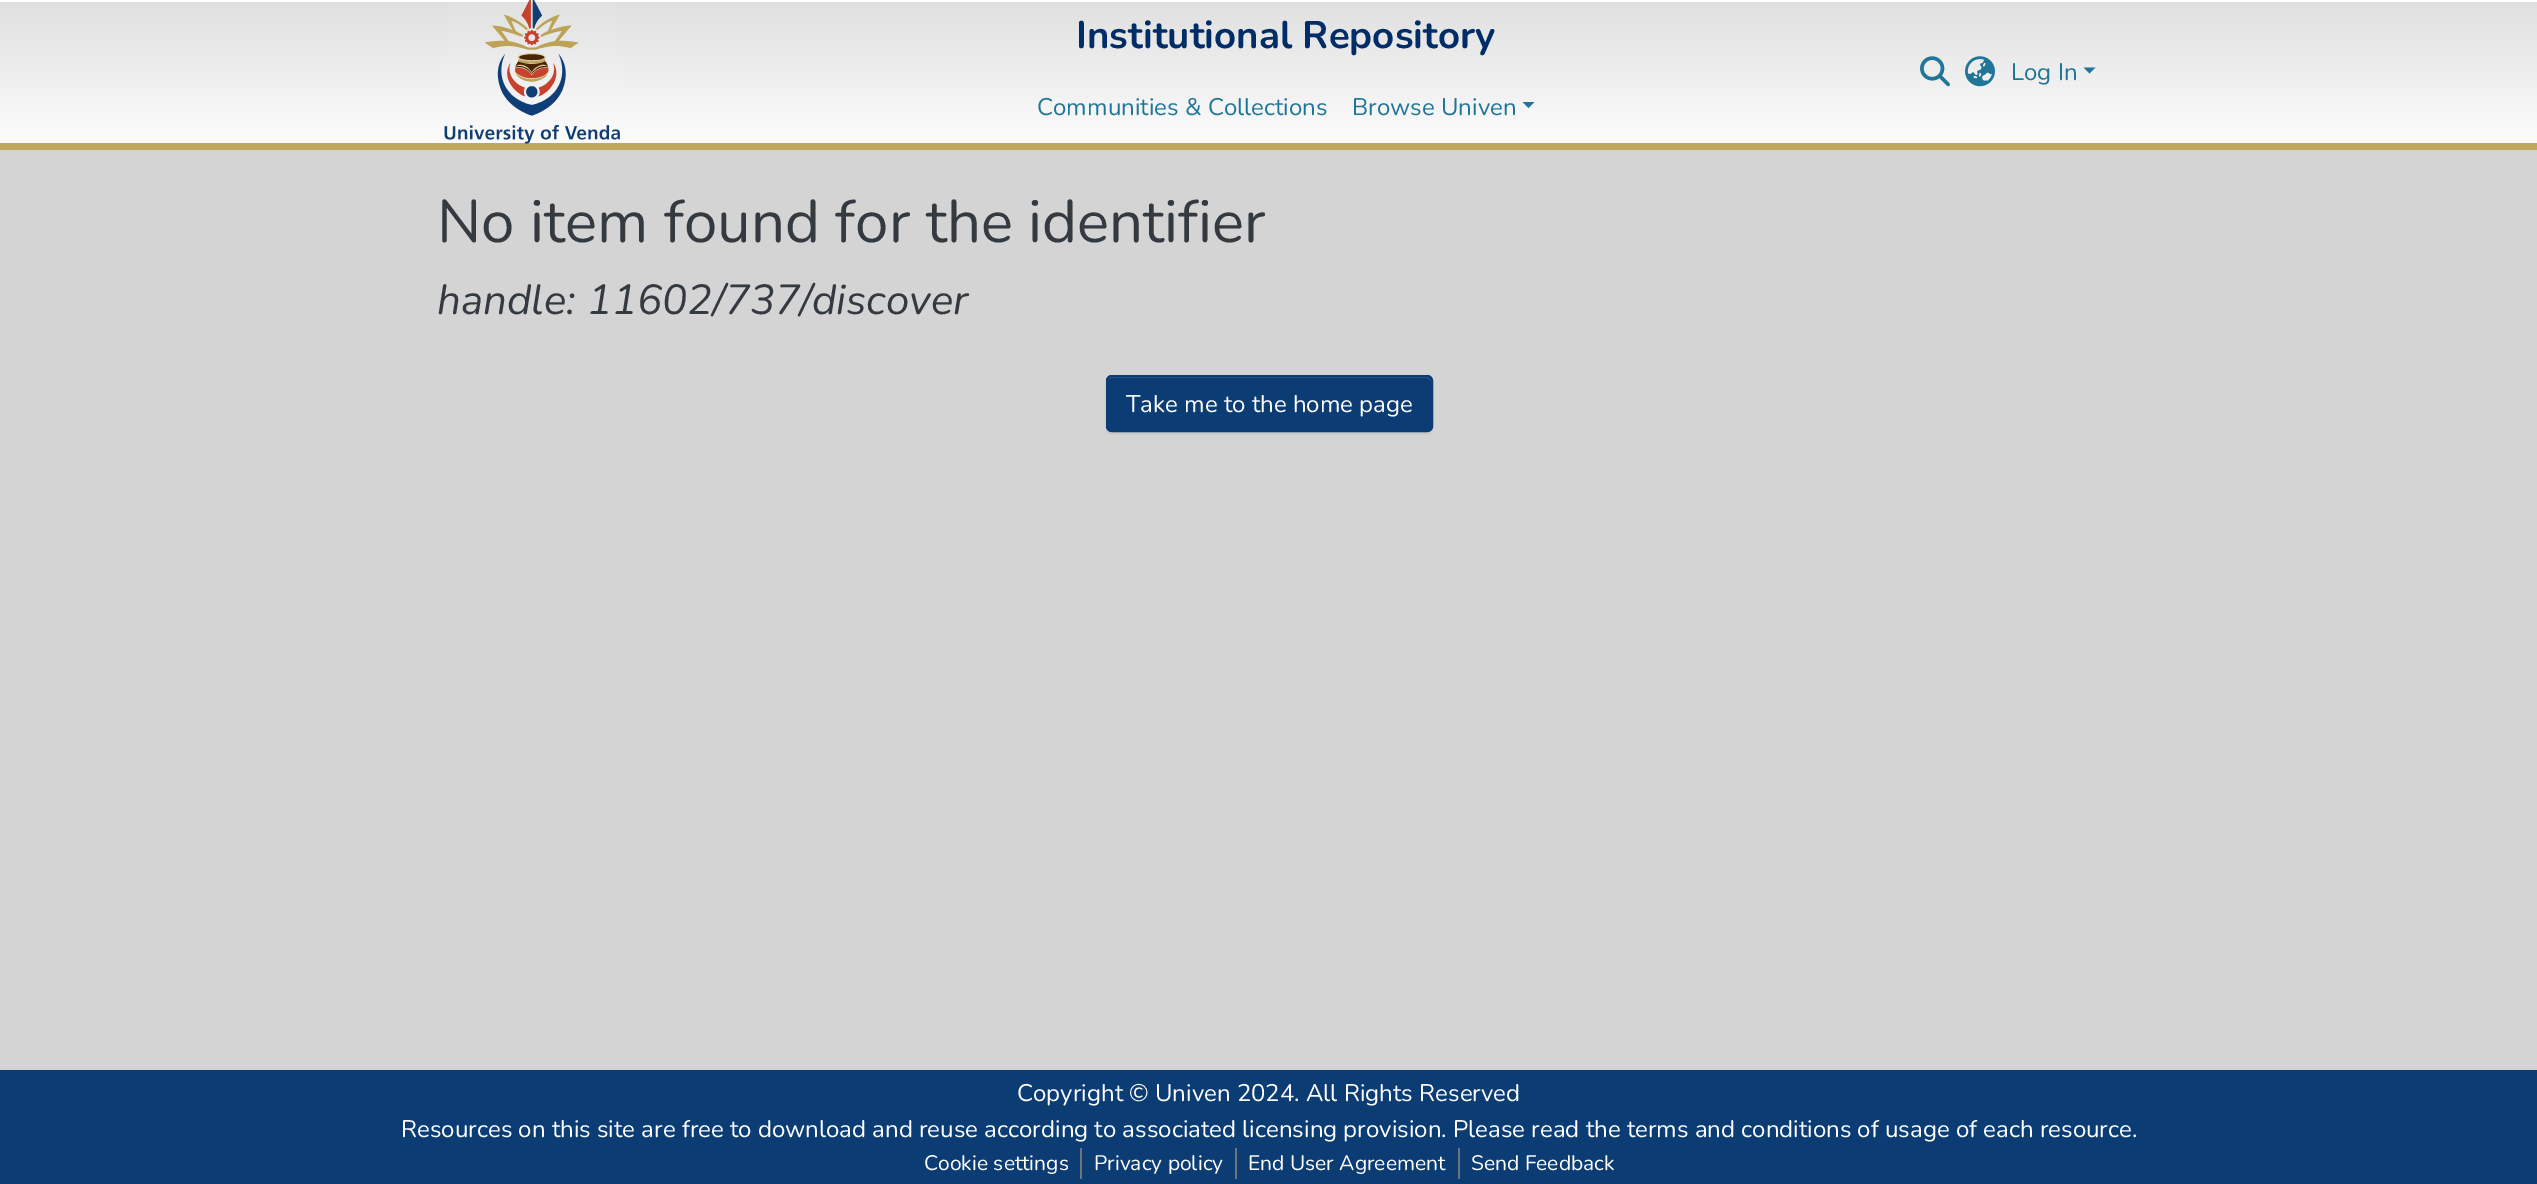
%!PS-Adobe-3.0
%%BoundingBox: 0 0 2537 1184
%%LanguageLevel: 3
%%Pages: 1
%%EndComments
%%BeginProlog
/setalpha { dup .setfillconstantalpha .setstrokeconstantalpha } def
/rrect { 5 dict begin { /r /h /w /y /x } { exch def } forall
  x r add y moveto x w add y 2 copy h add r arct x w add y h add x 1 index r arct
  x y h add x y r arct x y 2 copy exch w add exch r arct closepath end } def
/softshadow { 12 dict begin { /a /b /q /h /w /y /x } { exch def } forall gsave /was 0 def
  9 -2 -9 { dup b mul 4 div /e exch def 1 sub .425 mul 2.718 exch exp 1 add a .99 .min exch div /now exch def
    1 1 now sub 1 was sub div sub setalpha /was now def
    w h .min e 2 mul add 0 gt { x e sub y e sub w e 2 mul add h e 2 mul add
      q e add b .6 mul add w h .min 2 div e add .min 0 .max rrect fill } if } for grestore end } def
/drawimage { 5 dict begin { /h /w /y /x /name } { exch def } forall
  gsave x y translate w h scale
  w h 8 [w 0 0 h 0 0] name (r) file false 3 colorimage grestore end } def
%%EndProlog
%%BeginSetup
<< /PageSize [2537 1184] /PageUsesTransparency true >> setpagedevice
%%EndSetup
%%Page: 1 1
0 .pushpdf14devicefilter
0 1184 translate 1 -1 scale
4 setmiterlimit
0.831 setgray
0 0 2537 1184 rectfill
gsave newpath 0 2 moveto 2537 2 lineto 2537 143 lineto 0 143 lineto closepath clip newpath
<< /ShadingType 2 /ColorSpace /DeviceRGB /Coords [1269 0 1269 150] /Extend [true true] /Function << /FunctionType 2 /Domain [0 1] /C0 [0.878 0.878 0.878] /C1 [0.992 0.992 0.992] /N 1 >> >> shfill grestore
1 setgray
0 0 2537 2 rectfill
0.753 0.663 0.365 setrgbcolor
0 143 2537 7 rectfill
(images/1.raw) 444 0 176 144 drawimage
0.125 0.463 0.596 setrgbcolor
newpath 1522.5 102 moveto 1534.5 102 lineto 1528.5 108 lineto closepath fill
(images/2.raw) 1920 56 30 31 drawimage
(images/3.raw) 1965 56 30 31 drawimage
newpath 2083.5 67.5 moveto 2095.5 67.5 lineto 2089.5 73.5 lineto closepath fill
0 setgray
1106 377 327 57 6 1 0.07 softshadow
0.047 0.235 0.455 setrgbcolor
1106 375 327 57 6 rrect fill
0.188 0.349 0.537 setrgbcolor
newpath 1112 378 moveto 1426 378 lineto 1429 378 1431 380 1431 382 curveto 1431 379 1429 377 1426 377 curveto 1112 377 lineto 1109 377 1107 379 1107 382 curveto 1107 380 1109 378 1112 378 curveto closepath fill
0.047 0.235 0.455 setrgbcolor
2 setlinewidth
1107 376 325 55 5 rrect stroke
0 1070 2537 114 rectfill
0.808 0.831 0.855 setrgbcolor
0 1068 2537 2 rectfill
0.424 0.459 0.49 setrgbcolor
1080 1148 2 31 rectfill
1235 1148 2 31 rectfill
1458 1148 2 31 rectfill
/Nunito-Bold [38.4 0 0 -38.4 0 0] selectfont
0 0.176 0.408 setrgbcolor
1076 48 moveto (Institutional Repository) show
/Nunito-Regular [24 0 0 -24 0 0] selectfont
0.125 0.463 0.596 setrgbcolor
1037 115 moveto (Communities & Collections) show
1352 115 moveto (Browse Univen) show
2011 80 moveto (Log In) show
/Nunito-Regular [60 0 0 -60 0 0] selectfont
0.204 0.227 0.251 setrgbcolor
437 242 moveto (No item found for the identifier) show
/Nunito-Italic [42 0 0 -42 0 0] selectfont
437 314 moveto (handle: 11602/737/discover) show
/Nunito-Regular [24 0 0 -24 0 0] selectfont
1 setgray
1126 412 moveto (Take me to the home page) show
1017 1101 moveto (Copyright © Univen 2024. All Rights Reserved) show
401 1137 moveto (Resources on this site are free to download and reuse according to associated licensing provision. Please read the terms and conditions of usage of each resource.) show
/Nunito-Regular [21 0 0 -21 0 0] selectfont
924 1170 moveto (Cookie settings) show
1094 1170 moveto (Privacy policy) show
1248 1170 moveto (End User Agreement) show
1471 1170 moveto (Send Feedback) show
.poppdf14devicefilter showpage
%%EOF
